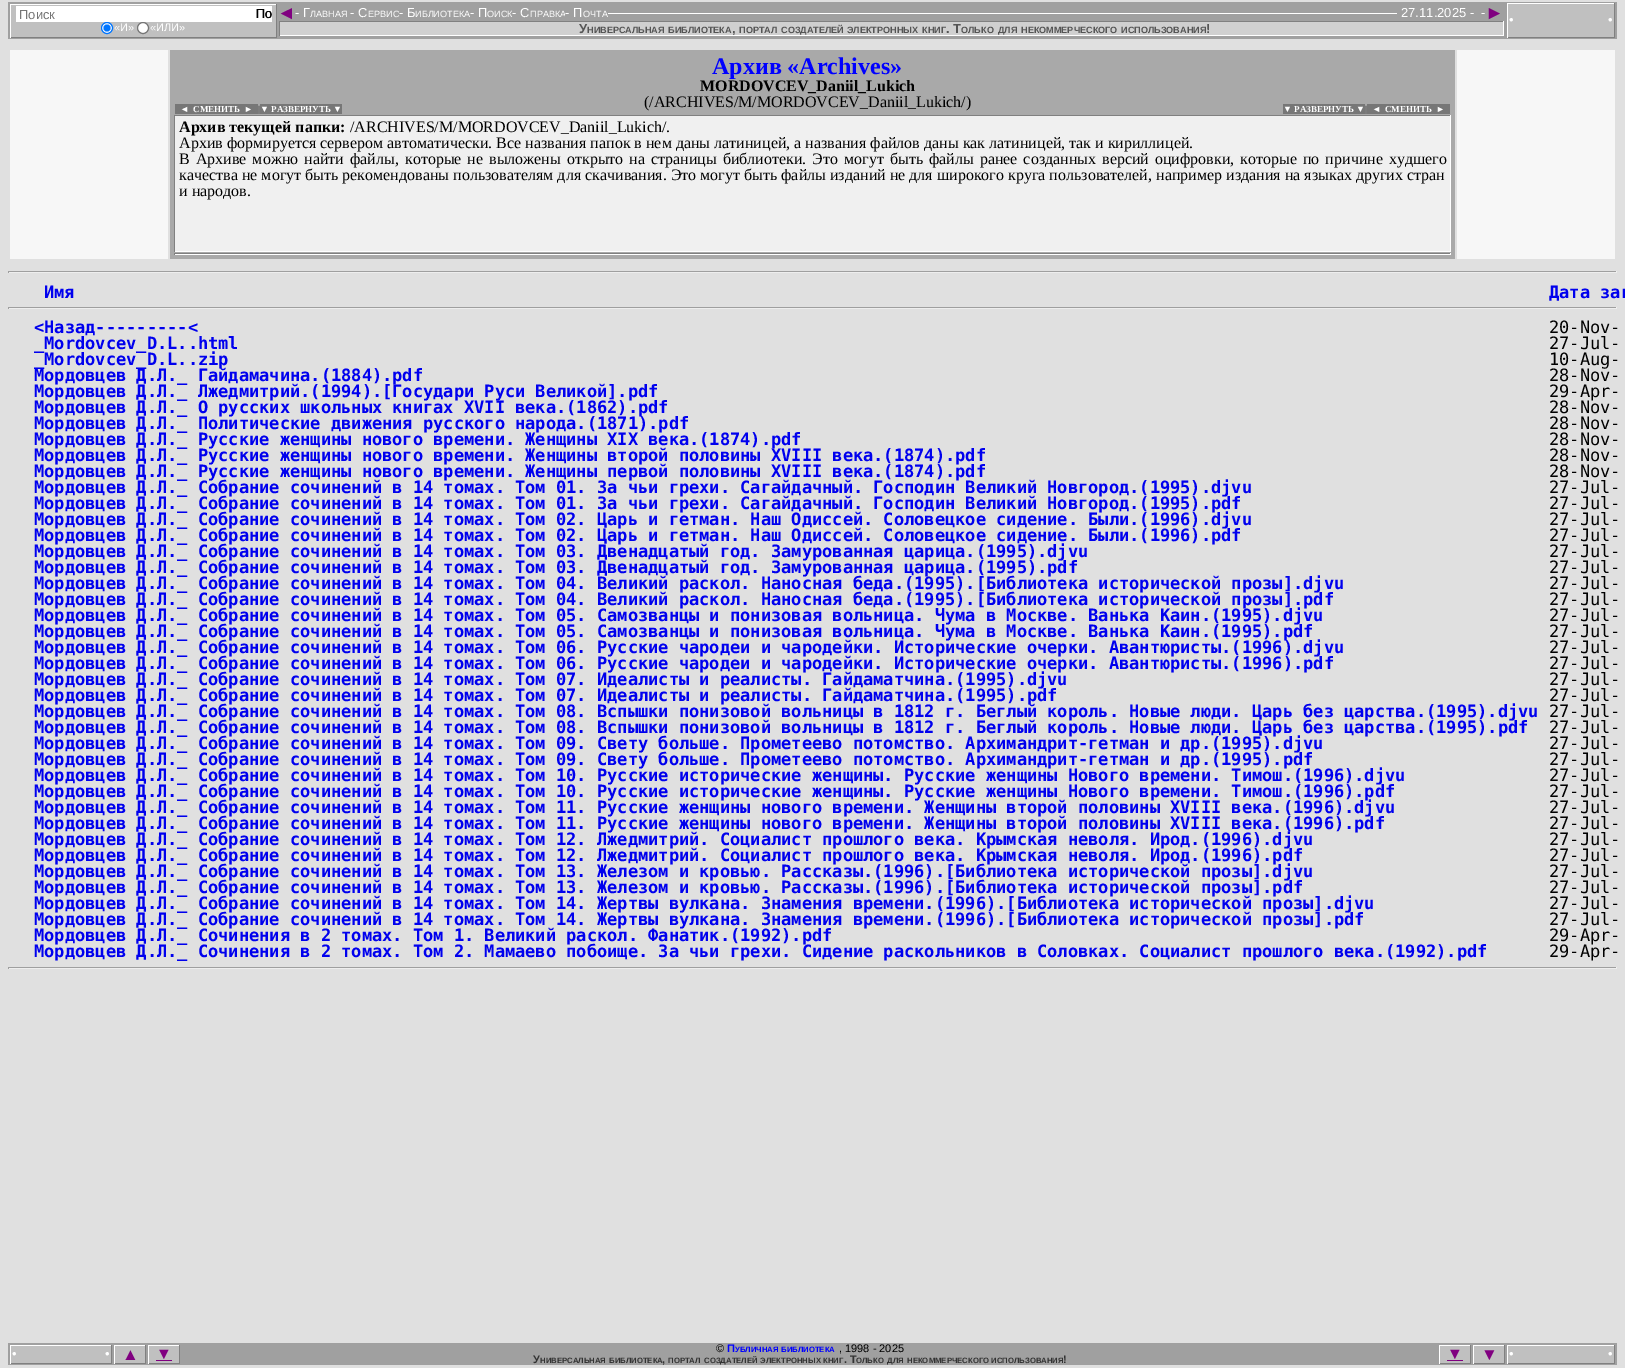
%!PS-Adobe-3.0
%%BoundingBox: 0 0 1625 1368
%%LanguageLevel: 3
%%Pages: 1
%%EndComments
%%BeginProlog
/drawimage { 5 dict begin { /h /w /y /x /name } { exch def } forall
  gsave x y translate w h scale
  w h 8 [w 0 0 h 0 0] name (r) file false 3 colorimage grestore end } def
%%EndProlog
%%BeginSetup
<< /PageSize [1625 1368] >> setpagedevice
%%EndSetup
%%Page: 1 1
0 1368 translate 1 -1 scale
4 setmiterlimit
0.878 setgray
0 0 1625 1368 rectfill
0.627 setgray
8 2 1609 37 rectfill
0.753 setgray
11 5 265 32 rectfill
1 setgray
10 4 267 1 rectfill
0.502 setgray
276 4 1 34 rectfill
10 37 267 1 rectfill
1 setgray
10 4 1 34 rectfill
16 6 256 16 rectfill
(images/1.raw) 256 9 16 9 drawimage
newpath 107 28 5.5 0 360 arc closepath gsave fill grestore
0 0.459 1 setrgbcolor
stroke
newpath 107 28 3.5 0 360 arc closepath fill
1 setgray
newpath 143 28 5.5 0 360 arc closepath gsave fill grestore
0.463 setgray
stroke
1 setgray
607 13 790 1 rectfill
0.627 setgray
607 12 1 2 rectfill
0.816 setgray
280 22 1223 13 rectfill
0.502 setgray
279 21 1225 1 rectfill
1 setgray
1503 21 1 15 rectfill
279 35 1225 1 rectfill
0.502 setgray
279 21 1 15 rectfill
0.753 setgray
1508 4 106 33 rectfill
1 setgray
1507 3 108 1 rectfill
0.502 setgray
1614 3 1 35 rectfill
1507 37 108 1 rectfill
1 setgray
1507 3 1 35 rectfill
0.969 setgray
10 50 158 209 rectfill
0.663 setgray
170 50 1285 209 rectfill
0.467 setgray
175 104 83 10 rectfill
260 104 82 10 rectfill
1283 104 82 10 rectfill
1367 104 83 10 rectfill
0.941 setgray
175 116 1275 135 rectfill
0.502 setgray
174 115 1277 1 rectfill
1 setgray
1450 115 1 137 rectfill
174 251 1277 1 rectfill
0.502 setgray
174 115 1 137 rectfill
174 253 1277 1 rectfill
1 setgray
1450 253 1 2 rectfill
174 254 1277 1 rectfill
0.502 setgray
174 253 1 2 rectfill
0.969 setgray
1457 50 158 209 rectfill
0.624 setgray
8 271 1609 1 rectfill
0.933 setgray
1616 271 1 2 rectfill
8 272 1609 1 rectfill
0.624 setgray
8 271 1 2 rectfill
8 307 1609 1 rectfill
0.933 setgray
1616 307 1 2 rectfill
8 308 1609 1 rectfill
0.624 setgray
8 307 1 2 rectfill
8 967 1609 1 rectfill
0.933 setgray
1616 967 1 2 rectfill
8 968 1609 1 rectfill
0.624 setgray
8 967 1 2 rectfill
0.627 setgray
8 1343 1609 22 rectfill
0.753 setgray
11 1346 100 17 rectfill
1 setgray
10 1345 102 1 rectfill
0.502 setgray
111 1345 1 19 rectfill
10 1363 102 1 rectfill
1 setgray
10 1345 1 19 rectfill
0.753 setgray
115 1346 30 17 rectfill
1 setgray
114 1345 32 1 rectfill
0.502 setgray
145 1345 1 19 rectfill
114 1363 32 1 rectfill
1 setgray
114 1345 1 19 rectfill
0.753 setgray
149 1346 30 17 rectfill
1 setgray
148 1345 32 1 rectfill
0.502 setgray
179 1345 1 19 rectfill
148 1363 32 1 rectfill
1 setgray
148 1345 1 19 rectfill
0.502 0 0.502 setrgbcolor
156 1360 16 1 rectfill
0.753 setgray
1440 1346 30 17 rectfill
1 setgray
1439 1345 32 1 rectfill
0.502 setgray
1470 1345 1 19 rectfill
1439 1363 32 1 rectfill
1 setgray
1439 1345 1 19 rectfill
0.502 0 0.502 setrgbcolor
1447 1360 16 1 rectfill
0.753 setgray
1474 1346 30 17 rectfill
1 setgray
1473 1345 32 1 rectfill
0.502 setgray
1504 1345 1 19 rectfill
1473 1363 32 1 rectfill
1 setgray
1473 1345 1 19 rectfill
0.753 setgray
1508 1346 106 17 rectfill
1 setgray
1507 1345 108 1 rectfill
0.502 setgray
1614 1345 1 19 rectfill
1507 1363 108 1 rectfill
1 setgray
1507 1345 1 19 rectfill
/LiberationSans-Regular [13 0 0 -13 0 0] selectfont
0.459 setgray
19 19 moveto (Поиск) show
0 setgray
256 18 moveto (По) show
/LiberationSans-Regular [11 0 0 -11 0 0] selectfont
1 setgray
114 31 moveto («И») show
150 31 moveto («ИЛИ») show
/LiberationSans-Regular [19 0 0 -19 0 0] selectfont
0.502 0 0.502 setrgbcolor
277 19 moveto (◄) show
/LiberationSans-Regular [13 0 0 -13 0 0] selectfont
1 setgray
295 17 moveto (- Г) show
/LiberationSans-Regular [9.1 0 0 -9.1 0 0] selectfont
310 17 moveto (ЛАВНАЯ) show
/LiberationSans-Regular [13 0 0 -13 0 0] selectfont
350 17 moveto (- С) show
/LiberationSans-Regular [9.1 0 0 -9.1 0 0] selectfont
368 17 moveto (ЕРВИС) show
/LiberationSans-Regular [13 0 0 -13 0 0] selectfont
399 17 moveto (- Б) show
/LiberationSans-Regular [9.1 0 0 -9.1 0 0] selectfont
415 17 moveto (ИБЛИОТЕКА) show
0.627 setgray
470 16 1 3 rectfill
/LiberationSans-Regular [13 0 0 -13 0 0] selectfont
1 setgray
470 17 moveto (- П) show
/LiberationSans-Regular [9.1 0 0 -9.1 0 0] selectfont
487 17 moveto (ОИСК) show
0.627 setgray
512 16 1 3 rectfill
/LiberationSans-Regular [13 0 0 -13 0 0] selectfont
1 setgray
512 17 moveto (- С) show
/LiberationSans-Regular [9.1 0 0 -9.1 0 0] selectfont
530 17 moveto (ПРАВКА) show
0.627 setgray
565 15 1 4 rectfill
/LiberationSans-Regular [13 0 0 -13 0 0] selectfont
1 setgray
565 17 moveto (- П) show
/LiberationSans-Regular [9.1 0 0 -9.1 0 0] selectfont
583 17 moveto (ОЧТА) show
/LiberationSans-Regular [13 0 0 -13 0 0] selectfont
1401 17 moveto (27.11.2025 -) show
1481 17 moveto (-) show
/LiberationSans-Regular [19 0 0 -19 0 0] selectfont
0.502 0 0.502 setrgbcolor
1485 19 moveto (►) show
/LiberationSans-Bold [13 0 0 -13 0 0] selectfont
0.333 setgray
579 33 moveto (У) show
/LiberationSans-Bold [9.1 0 0 -9.1 0 0] selectfont
587 33 moveto (НИВЕРСАЛЬНАЯ) show
668 33 moveto (БИБЛИОТЕКА) show
/LiberationSans-Bold [13 0 0 -13 0 0] selectfont
732 33 moveto (,) show
/LiberationSans-Bold [9.1 0 0 -9.1 0 0] selectfont
739 33 moveto (ПОРТАЛ) show
781 33 moveto (СОЗДАТЕЛЕЙ) show
847 33 moveto (ЭЛЕКТРОННЫХ) show
922 33 moveto (КНИГ) show
/LiberationSans-Bold [13 0 0 -13 0 0] selectfont
946 33 moveto (. Т) show
/LiberationSans-Bold [9.1 0 0 -9.1 0 0] selectfont
961 33 moveto (ОЛЬКО) show
998 33 moveto (ДЛЯ) show
1021 33 moveto (НЕКОММЕРЧЕСКОГО) show
1121 33 moveto (ИСПОЛЬЗОВАНИЯ) show
/LiberationSans-Bold [13 0 0 -13 0 0] selectfont
1206 33 moveto (!) show
/LiberationSans-Regular [13 0 0 -13 0 0] selectfont
1 setgray
1509 24 moveto (•) show
1608 24 moveto (•) show
/LiberationSerif-Bold [24 0 0 -24 0 0] selectfont
0 0 1 setrgbcolor
712 74 moveto (Архив «Archives») show
/LiberationSerif-Bold [16 0 0 -16 0 0] selectfont
0 setgray
700 91 moveto (MORDOVCEV_Daniil_Lukich) show
/LiberationSerif-Bold [9 0 0 -9 0 0] selectfont
1 setgray
180 112 moveto (◄  СМЕНИТЬ) show
244 112 moveto (►) show
0 setgray
258 112 moveto (|) show
1 setgray
260 112 moveto (▼ РАЗВЕРНУТЬ ▼) show
/LiberationSerif-Regular [16 0 0 -16 0 0] selectfont
0 setgray
644 107 moveto (\(/ARCHIVES/M/MORDOVCEV_Daniil_Lukich/\)) show
/LiberationSerif-Bold [9 0 0 -9 0 0] selectfont
1 setgray
1283 112 moveto (▼ РАЗВЕРНУТЬ ▼) show
0 setgray
1365 112 moveto (|) show
1 setgray
1372 112 moveto (◄) show
1385 112 moveto (СМЕНИТЬ  ►) show
/LiberationSerif-Bold [16 0 0 -16 0 0] selectfont
0 setgray
179 132 moveto (Архив текущей папки:) show
/LiberationSerif-Regular [16 0 0 -16 0 0] selectfont
350 132 moveto (/ARCHIVES/M/MORDOVCEV_Daniil_Lukich/.) show
179 148 moveto (Архив формируется сервером автоматически. Все названия папок в нем даны латиницей, а названия файлов даны как латиницей, так и кириллицей.) show
179 164 moveto 2 0 32 (В Архиве можно найти файлы, которые не выложены открыто на страницы библиотеки. Это могут быть файлы ранее созданных версий оцифровки, которые по причине худшего) widthshow
179 180 moveto (качества не могут быть рекомендованы пользователям для скачивания. Это могут быть файлы изданий не для широкого круга пользователей, например издания на языках других стран) show
179 196 moveto (и народов.) show
/DejaVuSansMono-Bold [17 0 0 -17 0 0] selectfont
0 0 0.933 setrgbcolor
44 298 moveto (Имя) show
1549 298 moveto (Дата заг) show
34 333 moveto (<Назад---------<) show
/DejaVuSansMono-Regular [17 0 0 -17 0 0] selectfont
0 setgray
1549 333 moveto (20-Nov-) show
/DejaVuSansMono-Bold [17 0 0 -17 0 0] selectfont
0 0 0.933 setrgbcolor
34 349 moveto (_Mordovcev_D.L..html) show
/DejaVuSansMono-Regular [17 0 0 -17 0 0] selectfont
0 setgray
1549 349 moveto (27-Jul-) show
/DejaVuSansMono-Bold [17 0 0 -17 0 0] selectfont
0 0 0.933 setrgbcolor
34 365 moveto (_Mordovcev_D.L..zip) show
/DejaVuSansMono-Regular [17 0 0 -17 0 0] selectfont
0 setgray
1549 365 moveto (10-Aug-) show
/DejaVuSansMono-Bold [17 0 0 -17 0 0] selectfont
0 0 0.933 setrgbcolor
34 381 moveto (Мордовцев Д.Л._ Гайдамачина.\(1884\).pdf) show
/DejaVuSansMono-Regular [17 0 0 -17 0 0] selectfont
0 setgray
1549 381 moveto (28-Nov-) show
/DejaVuSansMono-Bold [17 0 0 -17 0 0] selectfont
0 0 0.933 setrgbcolor
34 397 moveto (Мордовцев Д.Л._ Лжедмитрий.\(1994\).[Государи Руси Великой].pdf) show
/DejaVuSansMono-Regular [17 0 0 -17 0 0] selectfont
0 setgray
1549 397 moveto (29-Apr-) show
/DejaVuSansMono-Bold [17 0 0 -17 0 0] selectfont
0 0 0.933 setrgbcolor
34 413 moveto (Мордовцев Д.Л._ О русских школьных книгах XVII века.\(1862\).pdf) show
/DejaVuSansMono-Regular [17 0 0 -17 0 0] selectfont
0 setgray
1549 413 moveto (28-Nov-) show
/DejaVuSansMono-Bold [17 0 0 -17 0 0] selectfont
0 0 0.933 setrgbcolor
34 429 moveto (Мордовцев Д.Л._ Политические движения русского народа.\(1871\).pdf) show
/DejaVuSansMono-Regular [17 0 0 -17 0 0] selectfont
0 setgray
1549 429 moveto (28-Nov-) show
/DejaVuSansMono-Bold [17 0 0 -17 0 0] selectfont
0 0 0.933 setrgbcolor
34 445 moveto (Мордовцев Д.Л._ Русские женщины нового времени. Женщины XIX века.\(1874\).pdf) show
/DejaVuSansMono-Regular [17 0 0 -17 0 0] selectfont
0 setgray
1549 445 moveto (28-Nov-) show
/DejaVuSansMono-Bold [17 0 0 -17 0 0] selectfont
0 0 0.933 setrgbcolor
34 461 moveto (Мордовцев Д.Л._ Русские женщины нового времени. Женщины второй половины XVIII века.\(1874\).pdf) show
/DejaVuSansMono-Regular [17 0 0 -17 0 0] selectfont
0 setgray
1549 461 moveto (28-Nov-) show
/DejaVuSansMono-Bold [17 0 0 -17 0 0] selectfont
0 0 0.933 setrgbcolor
34 477 moveto (Мордовцев Д.Л._ Русские женщины нового времени. Женщины первой половины XVIII века.\(1874\).pdf) show
/DejaVuSansMono-Regular [17 0 0 -17 0 0] selectfont
0 setgray
1549 477 moveto (28-Nov-) show
/DejaVuSansMono-Bold [17 0 0 -17 0 0] selectfont
0 0 0.933 setrgbcolor
34 493 moveto (Мордовцев Д.Л._ Собрание сочинений в 14 томах. Том 01. За чьи грехи. Сагайдачный. Господин Великий Новгород.\(1995\).djvu) show
/DejaVuSansMono-Regular [17 0 0 -17 0 0] selectfont
0 setgray
1549 493 moveto (27-Jul-) show
/DejaVuSansMono-Bold [17 0 0 -17 0 0] selectfont
0 0 0.933 setrgbcolor
34 509 moveto (Мордовцев Д.Л._ Собрание сочинений в 14 томах. Том 01. За чьи грехи. Сагайдачный. Господин Великий Новгород.\(1995\).pdf) show
/DejaVuSansMono-Regular [17 0 0 -17 0 0] selectfont
0 setgray
1549 509 moveto (27-Jul-) show
/DejaVuSansMono-Bold [17 0 0 -17 0 0] selectfont
0 0 0.933 setrgbcolor
34 525 moveto (Мордовцев Д.Л._ Собрание сочинений в 14 томах. Том 02. Царь и гетман. Наш Одиссей. Соловецкое сидение. Были.\(1996\).djvu) show
/DejaVuSansMono-Regular [17 0 0 -17 0 0] selectfont
0 setgray
1549 525 moveto (27-Jul-) show
/DejaVuSansMono-Bold [17 0 0 -17 0 0] selectfont
0 0 0.933 setrgbcolor
34 541 moveto (Мордовцев Д.Л._ Собрание сочинений в 14 томах. Том 02. Царь и гетман. Наш Одиссей. Соловецкое сидение. Были.\(1996\).pdf) show
/DejaVuSansMono-Regular [17 0 0 -17 0 0] selectfont
0 setgray
1549 541 moveto (27-Jul-) show
/DejaVuSansMono-Bold [17 0 0 -17 0 0] selectfont
0 0 0.933 setrgbcolor
34 557 moveto (Мордовцев Д.Л._ Собрание сочинений в 14 томах. Том 03. Двенадцатый год. Замурованная царица.\(1995\).djvu) show
/DejaVuSansMono-Regular [17 0 0 -17 0 0] selectfont
0 setgray
1549 557 moveto (27-Jul-) show
/DejaVuSansMono-Bold [17 0 0 -17 0 0] selectfont
0 0 0.933 setrgbcolor
34 573 moveto (Мордовцев Д.Л._ Собрание сочинений в 14 томах. Том 03. Двенадцатый год. Замурованная царица.\(1995\).pdf) show
/DejaVuSansMono-Regular [17 0 0 -17 0 0] selectfont
0 setgray
1549 573 moveto (27-Jul-) show
/DejaVuSansMono-Bold [17 0 0 -17 0 0] selectfont
0 0 0.933 setrgbcolor
34 589 moveto (Мордовцев Д.Л._ Собрание сочинений в 14 томах. Том 04. Великий раскол. Наносная беда.\(1995\).[Библиотека исторической прозы].djvu) show
/DejaVuSansMono-Regular [17 0 0 -17 0 0] selectfont
0 setgray
1549 589 moveto (27-Jul-) show
/DejaVuSansMono-Bold [17 0 0 -17 0 0] selectfont
0 0 0.933 setrgbcolor
34 605 moveto (Мордовцев Д.Л._ Собрание сочинений в 14 томах. Том 04. Великий раскол. Наносная беда.\(1995\).[Библиотека исторической прозы].pdf) show
/DejaVuSansMono-Regular [17 0 0 -17 0 0] selectfont
0 setgray
1549 605 moveto (27-Jul-) show
/DejaVuSansMono-Bold [17 0 0 -17 0 0] selectfont
0 0 0.933 setrgbcolor
34 621 moveto (Мордовцев Д.Л._ Собрание сочинений в 14 томах. Том 05. Самозванцы и понизовая вольница. Чума в Москве. Ванька Каин.\(1995\).djvu) show
/DejaVuSansMono-Regular [17 0 0 -17 0 0] selectfont
0 setgray
1549 621 moveto (27-Jul-) show
/DejaVuSansMono-Bold [17 0 0 -17 0 0] selectfont
0 0 0.933 setrgbcolor
34 637 moveto (Мордовцев Д.Л._ Собрание сочинений в 14 томах. Том 05. Самозванцы и понизовая вольница. Чума в Москве. Ванька Каин.\(1995\).pdf) show
/DejaVuSansMono-Regular [17 0 0 -17 0 0] selectfont
0 setgray
1549 637 moveto (27-Jul-) show
/DejaVuSansMono-Bold [17 0 0 -17 0 0] selectfont
0 0 0.933 setrgbcolor
34 653 moveto (Мордовцев Д.Л._ Собрание сочинений в 14 томах. Том 06. Русские чародеи и чародейки. Исторические очерки. Авантюристы.\(1996\).djvu) show
/DejaVuSansMono-Regular [17 0 0 -17 0 0] selectfont
0 setgray
1549 653 moveto (27-Jul-) show
/DejaVuSansMono-Bold [17 0 0 -17 0 0] selectfont
0 0 0.933 setrgbcolor
34 669 moveto (Мордовцев Д.Л._ Собрание сочинений в 14 томах. Том 06. Русские чародеи и чародейки. Исторические очерки. Авантюристы.\(1996\).pdf) show
/DejaVuSansMono-Regular [17 0 0 -17 0 0] selectfont
0 setgray
1549 669 moveto (27-Jul-) show
/DejaVuSansMono-Bold [17 0 0 -17 0 0] selectfont
0 0 0.933 setrgbcolor
34 685 moveto (Мордовцев Д.Л._ Собрание сочинений в 14 томах. Том 07. Идеалисты и реалисты. Гайдаматчина.\(1995\).djvu) show
/DejaVuSansMono-Regular [17 0 0 -17 0 0] selectfont
0 setgray
1549 685 moveto (27-Jul-) show
/DejaVuSansMono-Bold [17 0 0 -17 0 0] selectfont
0 0 0.933 setrgbcolor
34 701 moveto (Мордовцев Д.Л._ Собрание сочинений в 14 томах. Том 07. Идеалисты и реалисты. Гайдаматчина.\(1995\).pdf) show
/DejaVuSansMono-Regular [17 0 0 -17 0 0] selectfont
0 setgray
1549 701 moveto (27-Jul-) show
/DejaVuSansMono-Bold [17 0 0 -17 0 0] selectfont
0 0 0.933 setrgbcolor
34 717 moveto (Мордовцев Д.Л._ Собрание сочинений в 14 томах. Том 08. Вспышки понизовой вольницы в 1812 г. Беглый король. Новые люди. Царь без царства.\(1995\).djvu) show
/DejaVuSansMono-Regular [17 0 0 -17 0 0] selectfont
0 setgray
1549 717 moveto (27-Jul-) show
/DejaVuSansMono-Bold [17 0 0 -17 0 0] selectfont
0 0 0.933 setrgbcolor
34 733 moveto (Мордовцев Д.Л._ Собрание сочинений в 14 томах. Том 08. Вспышки понизовой вольницы в 1812 г. Беглый король. Новые люди. Царь без царства.\(1995\).pdf) show
/DejaVuSansMono-Regular [17 0 0 -17 0 0] selectfont
0 setgray
1549 733 moveto (27-Jul-) show
/DejaVuSansMono-Bold [17 0 0 -17 0 0] selectfont
0 0 0.933 setrgbcolor
34 749 moveto (Мордовцев Д.Л._ Собрание сочинений в 14 томах. Том 09. Свету больше. Прометеево потомство. Архимандрит-гетман и др.\(1995\).djvu) show
/DejaVuSansMono-Regular [17 0 0 -17 0 0] selectfont
0 setgray
1549 749 moveto (27-Jul-) show
/DejaVuSansMono-Bold [17 0 0 -17 0 0] selectfont
0 0 0.933 setrgbcolor
34 765 moveto (Мордовцев Д.Л._ Собрание сочинений в 14 томах. Том 09. Свету больше. Прометеево потомство. Архимандрит-гетман и др.\(1995\).pdf) show
/DejaVuSansMono-Regular [17 0 0 -17 0 0] selectfont
0 setgray
1549 765 moveto (27-Jul-) show
/DejaVuSansMono-Bold [17 0 0 -17 0 0] selectfont
0 0 0.933 setrgbcolor
34 781 moveto (Мордовцев Д.Л._ Собрание сочинений в 14 томах. Том 10. Русские исторические женщины. Русские женщины Нового времени. Тимош.\(1996\).djvu) show
/DejaVuSansMono-Regular [17 0 0 -17 0 0] selectfont
0 setgray
1549 781 moveto (27-Jul-) show
/DejaVuSansMono-Bold [17 0 0 -17 0 0] selectfont
0 0 0.933 setrgbcolor
34 797 moveto (Мордовцев Д.Л._ Собрание сочинений в 14 томах. Том 10. Русские исторические женщины. Русские женщины Нового времени. Тимош.\(1996\).pdf) show
/DejaVuSansMono-Regular [17 0 0 -17 0 0] selectfont
0 setgray
1549 797 moveto (27-Jul-) show
/DejaVuSansMono-Bold [17 0 0 -17 0 0] selectfont
0 0 0.933 setrgbcolor
34 813 moveto (Мордовцев Д.Л._ Собрание сочинений в 14 томах. Том 11. Русские женщины нового времени. Женщины второй половины XVIII века.\(1996\).djvu) show
/DejaVuSansMono-Regular [17 0 0 -17 0 0] selectfont
0 setgray
1549 813 moveto (27-Jul-) show
/DejaVuSansMono-Bold [17 0 0 -17 0 0] selectfont
0 0 0.933 setrgbcolor
34 829 moveto (Мордовцев Д.Л._ Собрание сочинений в 14 томах. Том 11. Русские женщины нового времени. Женщины второй половины XVIII века.\(1996\).pdf) show
/DejaVuSansMono-Regular [17 0 0 -17 0 0] selectfont
0 setgray
1549 829 moveto (27-Jul-) show
/DejaVuSansMono-Bold [17 0 0 -17 0 0] selectfont
0 0 0.933 setrgbcolor
34 845 moveto (Мордовцев Д.Л._ Собрание сочинений в 14 томах. Том 12. Лжедмитрий. Социалист прошлого века. Крымская неволя. Ирод.\(1996\).djvu) show
/DejaVuSansMono-Regular [17 0 0 -17 0 0] selectfont
0 setgray
1549 845 moveto (27-Jul-) show
/DejaVuSansMono-Bold [17 0 0 -17 0 0] selectfont
0 0 0.933 setrgbcolor
34 861 moveto (Мордовцев Д.Л._ Собрание сочинений в 14 томах. Том 12. Лжедмитрий. Социалист прошлого века. Крымская неволя. Ирод.\(1996\).pdf) show
/DejaVuSansMono-Regular [17 0 0 -17 0 0] selectfont
0 setgray
1549 861 moveto (27-Jul-) show
/DejaVuSansMono-Bold [17 0 0 -17 0 0] selectfont
0 0 0.933 setrgbcolor
34 877 moveto (Мордовцев Д.Л._ Собрание сочинений в 14 томах. Том 13. Железом и кровью. Рассказы.\(1996\).[Библиотека исторической прозы].djvu) show
/DejaVuSansMono-Regular [17 0 0 -17 0 0] selectfont
0 setgray
1549 877 moveto (27-Jul-) show
/DejaVuSansMono-Bold [17 0 0 -17 0 0] selectfont
0 0 0.933 setrgbcolor
34 893 moveto (Мордовцев Д.Л._ Собрание сочинений в 14 томах. Том 13. Железом и кровью. Рассказы.\(1996\).[Библиотека исторической прозы].pdf) show
/DejaVuSansMono-Regular [17 0 0 -17 0 0] selectfont
0 setgray
1549 893 moveto (27-Jul-) show
/DejaVuSansMono-Bold [17 0 0 -17 0 0] selectfont
0 0 0.933 setrgbcolor
34 909 moveto (Мордовцев Д.Л._ Собрание сочинений в 14 томах. Том 14. Жертвы вулкана. Знамения времени.\(1996\).[Библиотека исторической прозы].djvu) show
/DejaVuSansMono-Regular [17 0 0 -17 0 0] selectfont
0 setgray
1549 909 moveto (27-Jul-) show
/DejaVuSansMono-Bold [17 0 0 -17 0 0] selectfont
0 0 0.933 setrgbcolor
34 925 moveto (Мордовцев Д.Л._ Собрание сочинений в 14 томах. Том 14. Жертвы вулкана. Знамения времени.\(1996\).[Библиотека исторической прозы].pdf) show
/DejaVuSansMono-Regular [17 0 0 -17 0 0] selectfont
0 setgray
1549 925 moveto (27-Jul-) show
/DejaVuSansMono-Bold [17 0 0 -17 0 0] selectfont
0 0 0.933 setrgbcolor
34 941 moveto (Мордовцев Д.Л._ Сочинения в 2 томах. Том 1. Великий раскол. Фанатик.\(1992\).pdf) show
/DejaVuSansMono-Regular [17 0 0 -17 0 0] selectfont
0 setgray
1549 941 moveto (29-Apr-) show
/DejaVuSansMono-Bold [17 0 0 -17 0 0] selectfont
0 0 0.933 setrgbcolor
34 957 moveto (Мордовцев Д.Л._ Сочинения в 2 томах. Том 2. Мамаево побоище. За чьи грехи. Сидение раскольников в Соловках. Социалист прошлого века.\(1992\).pdf) show
/DejaVuSansMono-Regular [17 0 0 -17 0 0] selectfont
0 setgray
1549 957 moveto (29-Apr-) show
/LiberationSans-Regular [13 0 0 -13 0 0] selectfont
1 setgray
12 1358 moveto (•) show
105 1358 moveto (•) show
/LiberationSans-Regular [17 0 0 -17 0 0] selectfont
0.502 0 0.502 setrgbcolor
122 1360 moveto (▲) show
/LiberationSans-Regular [16 0 0 -16 0 0] selectfont
156 1359 moveto (▼) show
/LiberationSans-Regular [11 0 0 -11 0 0] selectfont
0 setgray
716 1352 moveto (©) show
/LiberationSans-Bold [11 0 0 -11 0 0] selectfont
0 0 1 setrgbcolor
727 1352 moveto (П) show
/LiberationSans-Bold [7.75 0 0 -7.75 0 0] selectfont
735 1352 moveto (УБЛИЧНАЯ) show
781 1352 moveto (БИБЛИОТЕКА) show
/LiberationSans-Regular [11 0 0 -11 0 0] selectfont
0 setgray
839 1352 moveto (, 1998 - 2025) show
/LiberationSans-Regular [16 0 0 -16 0 0] selectfont
0.502 0 0.502 setrgbcolor
1447 1359 moveto (▼) show
/LiberationSans-Regular [17 0 0 -17 0 0] selectfont
1481 1360 moveto (▼) show
/LiberationSans-Bold [11 0 0 -11 0 0] selectfont
0.2 setgray
533 1363 moveto (У) show
/LiberationSans-Bold [7.75 0 0 -7.75 0 0] selectfont
540 1363 moveto (НИВЕРСАЛЬНАЯ) show
609 1363 moveto (БИБЛИОТЕКА) show
/LiberationSans-Bold [11 0 0 -11 0 0] selectfont
662 1363 moveto (,) show
/LiberationSans-Bold [7.75 0 0 -7.75 0 0] selectfont
668 1363 moveto (ПОРТАЛ) show
704 1363 moveto (СОЗДАТЕЛЕЙ) show
760 1363 moveto (ЭЛЕКТРОННЫХ) show
823 1363 moveto (КНИГ) show
/LiberationSans-Bold [11 0 0 -11 0 0] selectfont
844 1363 moveto (. Т) show
/LiberationSans-Bold [7.75 0 0 -7.75 0 0] selectfont
856 1363 moveto (ОЛЬКО) show
887 1363 moveto (ДЛЯ) show
907 1363 moveto (НЕКОММЕРЧЕСКОГО) show
991 1363 moveto (ИСПОЛЬЗОВАНИЯ) show
/LiberationSans-Bold [11 0 0 -11 0 0] selectfont
1063 1363 moveto (!) show
/LiberationSans-Regular [13 0 0 -13 0 0] selectfont
1 setgray
1509 1358 moveto (•) show
1608 1358 moveto (•) show
showpage
%%EOF
